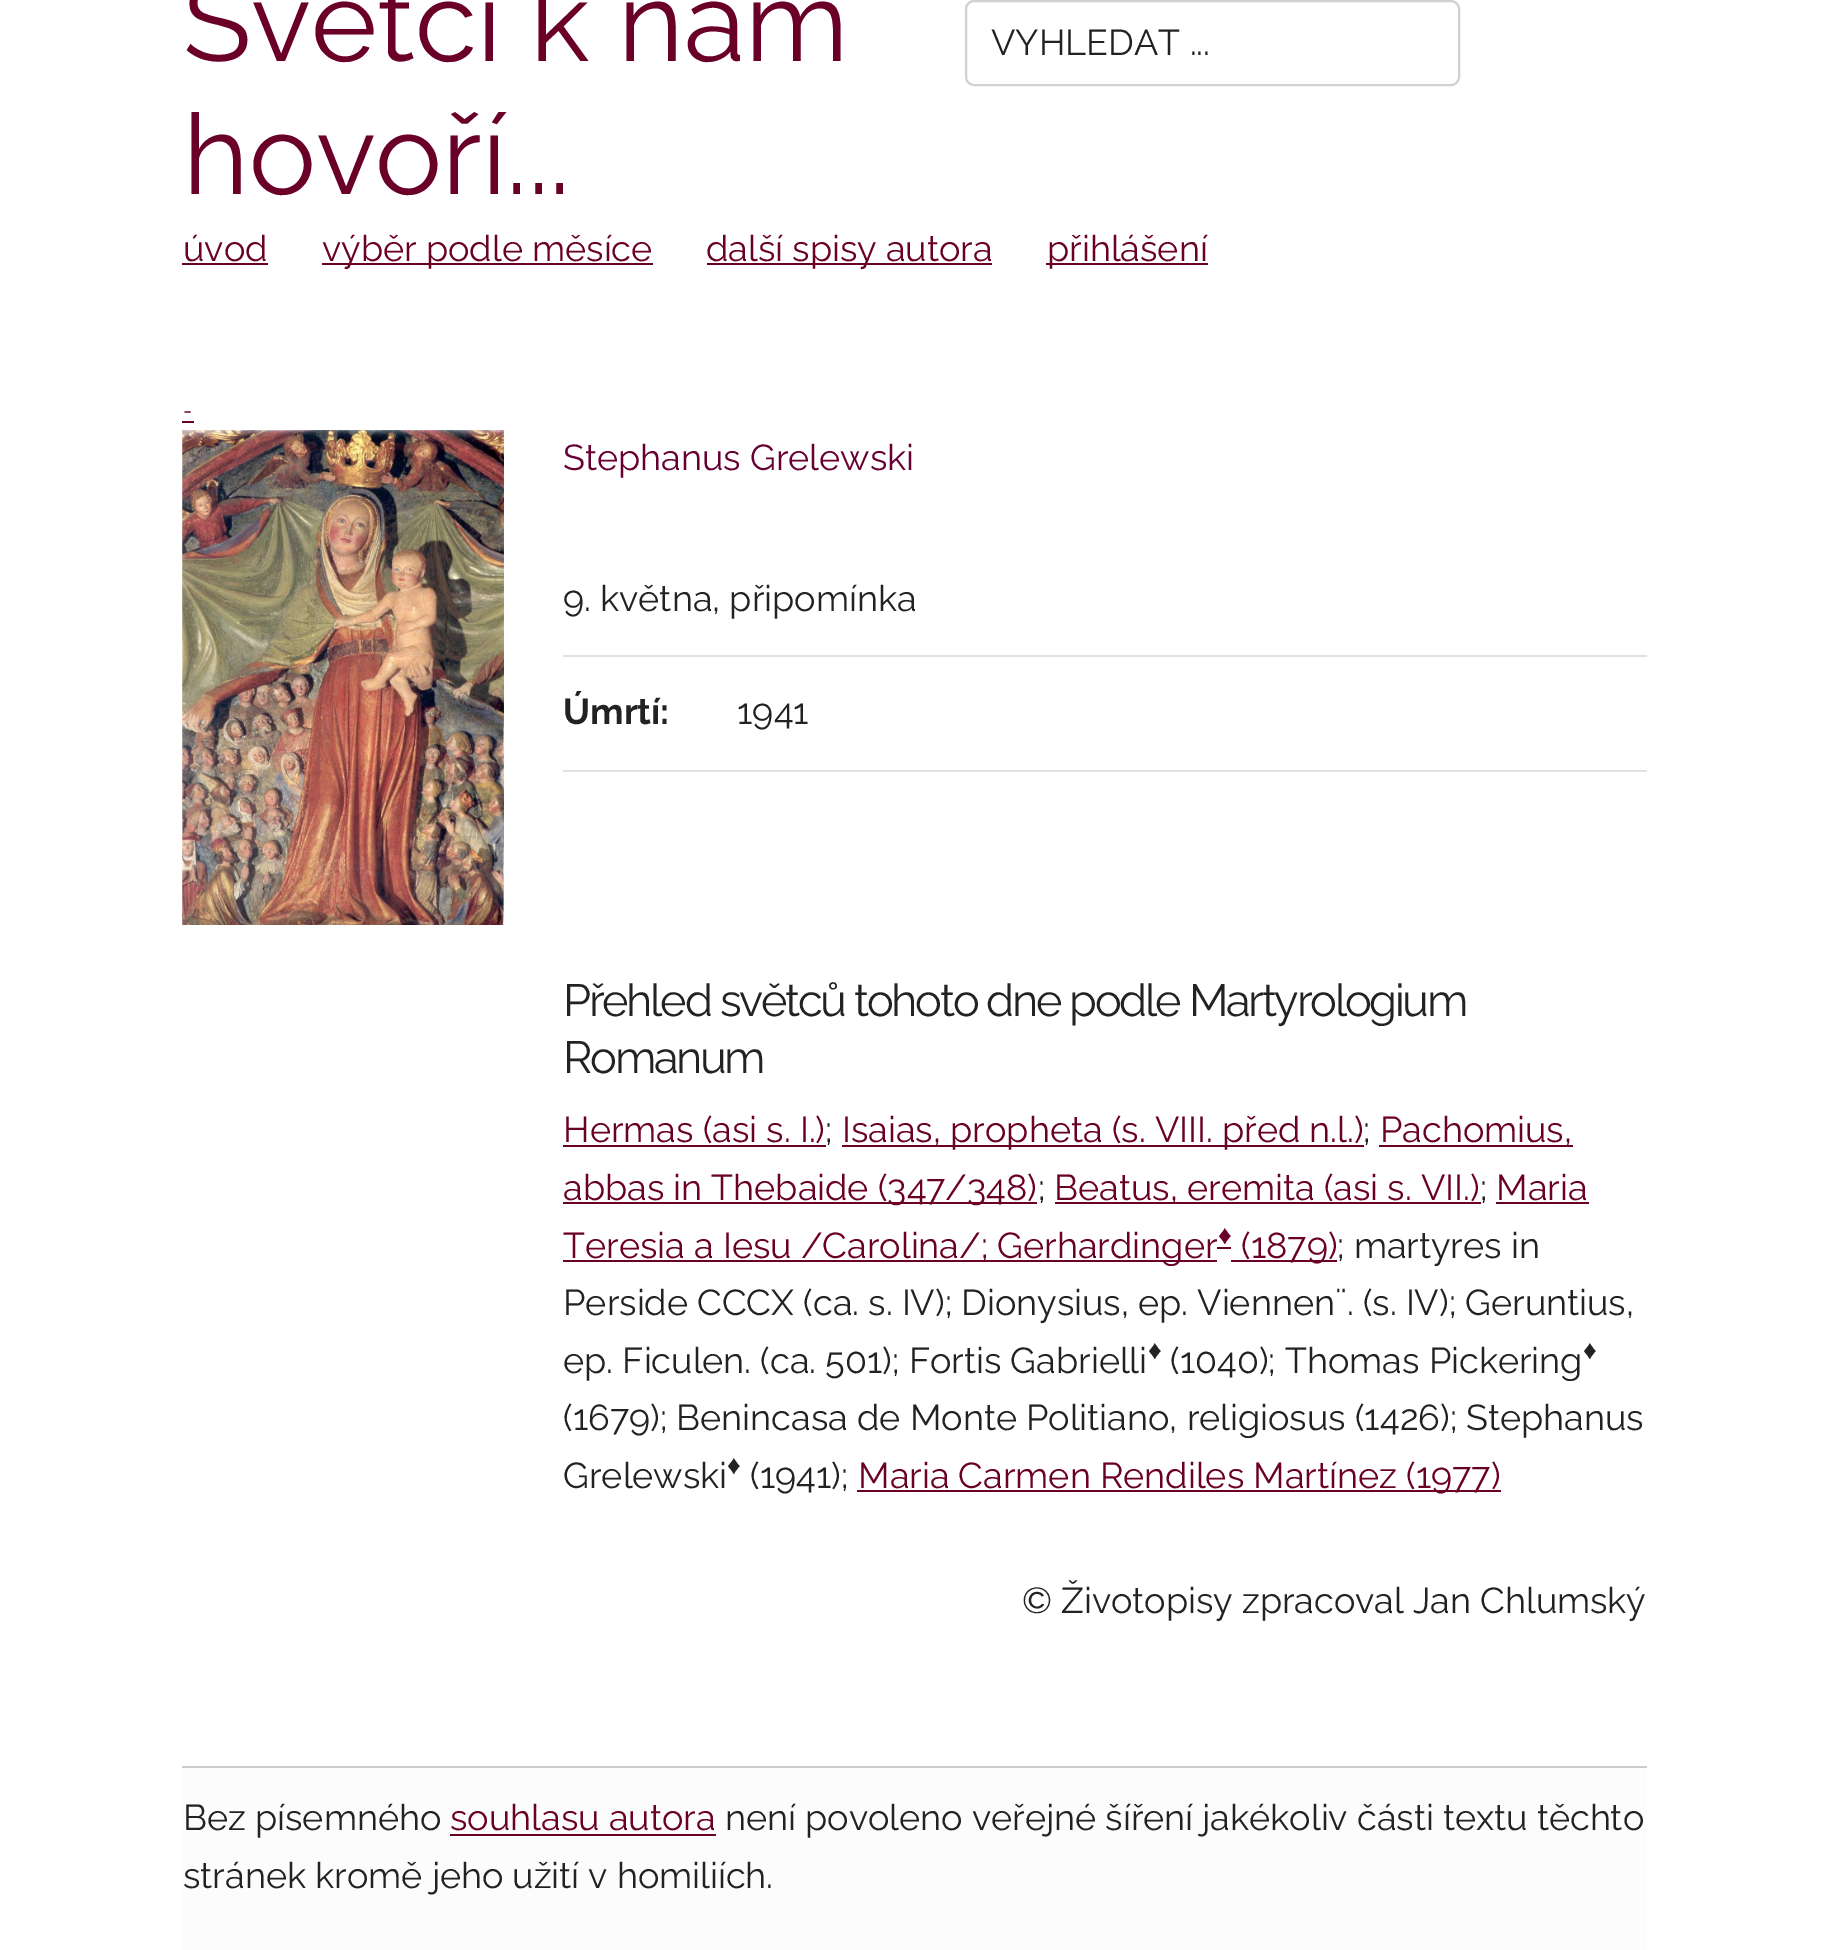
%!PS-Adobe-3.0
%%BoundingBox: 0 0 1829 1950
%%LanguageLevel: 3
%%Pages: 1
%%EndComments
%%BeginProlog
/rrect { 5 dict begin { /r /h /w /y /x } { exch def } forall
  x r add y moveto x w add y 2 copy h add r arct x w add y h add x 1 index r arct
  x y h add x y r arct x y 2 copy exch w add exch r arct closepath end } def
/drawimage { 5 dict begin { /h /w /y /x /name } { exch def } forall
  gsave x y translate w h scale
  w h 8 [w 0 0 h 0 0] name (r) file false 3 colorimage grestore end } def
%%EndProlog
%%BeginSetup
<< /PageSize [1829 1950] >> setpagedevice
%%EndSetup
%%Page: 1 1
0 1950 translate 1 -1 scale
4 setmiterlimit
1 setgray
0 0 1829 1950 rectfill
0.82 setgray
2 setlinewidth
966 1 493 84 8 rrect stroke
0.416 0 0.157 setrgbcolor
182 263 86 2 rectfill
322 263 331 2 rectfill
707 263 285 2 rectfill
1046 263 162 2 rectfill
182 421 12 2 rectfill
(images/1.raw) 182 430 322 495 drawimage
0.882 setgray
563 655 1084 2 rectfill
563 770 1084 2 rectfill
0.416 0 0.157 setrgbcolor
563 1145 263 2 rectfill
842 1145 522 2 rectfill
1379 1145 194 2 rectfill
563 1202 474 2 rectfill
1055 1202 426 2 rectfill
1496 1202 93 2 rectfill
563 1260 654 2 rectfill
1217 1247 14 2 rectfill
1231 1260 106 2 rectfill
857 1490 644 2 rectfill
0.988 setgray
182 1768 1465 182 rectfill
0.8 setgray
182 1766 1465 2 rectfill
0.416 0 0.157 setrgbcolor
450 1834 266 2 rectfill
/Raleway-Regular [112.5 0 0 -112.5 0 0] selectfont
183 61 moveto (Světci k nám) show
183 194 moveto (hovoří...) show
/Raleway-Regular [36 0 0 -36 0 0] selectfont
0.133 setgray
991 55 moveto (VYHLEDAT ...) show
0.416 0 0.157 setrgbcolor
183 261 moveto (úvod) show
322 261 moveto (výběr podle měsíce) show
706 261 moveto (další spisy autora) show
1047 261 moveto (přihlášení) show
/Raleway-Regular [22 0 0 -22 0 0] selectfont
183 418 moveto (-) show
/Raleway-Regular [36 0 0 -36 0 0] selectfont
0.4 0 0.2 setrgbcolor
563 470 moveto (Stephanus Grelewski) show
0.133 setgray
563 611 moveto (9. května, připomínka) show
/Raleway-Bold [36 0 0 -36 0 0] selectfont
563 724 moveto (Úmrtí:) show
/Raleway-Regular [36 0 0 -36 0 0] selectfont
737 724 moveto (1941) show
/Raleway-Regular [45 0 0 -45 0 0] selectfont
563 1016 moveto -2.25 0 (Přehled světců tohoto dne podle Martyrologium) ashow
563 1073 moveto -2.25 0 (Romanum) ashow
/Raleway-Regular [36 0 0 -36 0 0] selectfont
0.416 0 0.157 setrgbcolor
563 1142 moveto (Hermas \(asi s. I.\)) show
0.133 setgray
825 1142 moveto (;) show
0.416 0 0.157 setrgbcolor
842 1142 moveto (Isaias, propheta \(s. VIII. před n.l.\)) show
0.133 setgray
1363 1142 moveto (;) show
0.416 0 0.157 setrgbcolor
1380 1142 moveto (Pachomius,) show
563 1200 moveto (abbas in Thebaide \(347/348\)) show
0.133 setgray
1038 1200 moveto (;) show
0.416 0 0.157 setrgbcolor
1054 1200 moveto (Beatus, eremita \(asi s. VII.\)) show
0.133 setgray
1480 1200 moveto (;) show
0.416 0 0.157 setrgbcolor
1496 1200 moveto (Maria) show
563 1258 moveto (Teresia a Iesu /Carolina/; Gerhardinger) show
/LiberationSans-Regular [27 0 0 -27 0 0] selectfont
1218 1244 moveto (♦) show
/Raleway-Regular [36 0 0 -36 0 0] selectfont
1241 1258 moveto (\(1879\)) show
0.133 setgray
1337 1258 moveto (; martyres in) show
563 1315 moveto (Perside CCCX \(ca. s. IV\); Dionysius, ep. Viennen¨. \(s. IV\); Geruntius,) show
563 1373 moveto (ep. Ficulen. \(ca. 501\); Fortis Gabrielli) show
/LiberationSans-Regular [27 0 0 -27 0 0] selectfont
1148 1359 moveto (♦) show
/Raleway-Regular [36 0 0 -36 0 0] selectfont
1170 1373 moveto (\(1040\); Thomas Pickering) show
/LiberationSans-Regular [27 0 0 -27 0 0] selectfont
1583 1359 moveto (♦) show
/Raleway-Regular [36 0 0 -36 0 0] selectfont
563 1430 moveto (\(1679\); Benincasa de Monte Politiano, religiosus \(1426\); Stephanus) show
563 1488 moveto (Grelewski) show
/LiberationSans-Regular [27 0 0 -27 0 0] selectfont
727 1474 moveto (♦) show
/Raleway-Regular [36 0 0 -36 0 0] selectfont
750 1488 moveto (\(1941\);) show
0.416 0 0.157 setrgbcolor
858 1488 moveto (Maria Carmen Rendiles Martínez \(1977\)) show
0.133 setgray
1022 1613 moveto (© Životopisy zpracoval Jan Chlumský) show
183 1830 moveto (Bez písemného) show
0.416 0 0.157 setrgbcolor
450 1830 moveto (souhlasu autora) show
0.133 setgray
725 1830 moveto (není povoleno veřejné šíření jakékoliv části textu těchto) show
183 1888 moveto (stránek kromě jeho užití v homiliích.) show
showpage
%%EOF
